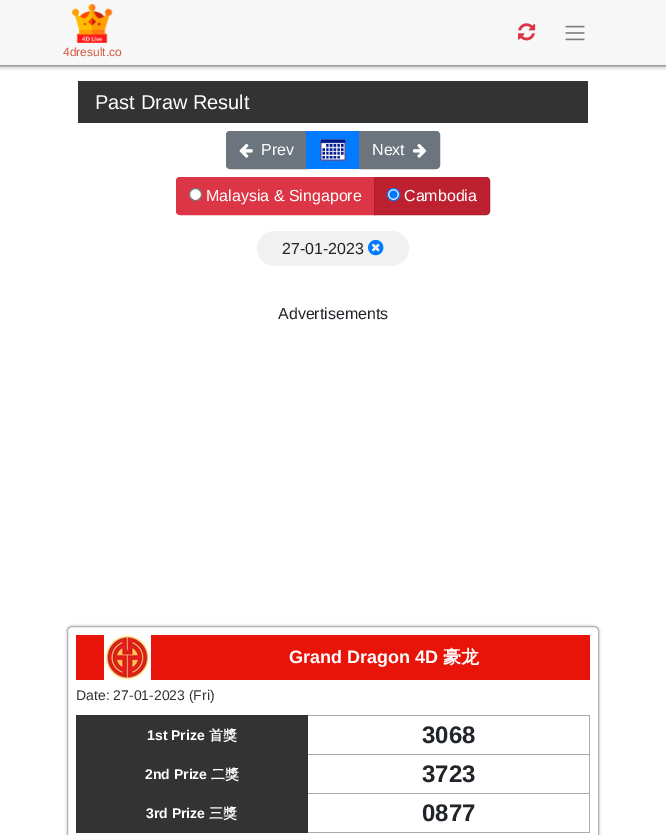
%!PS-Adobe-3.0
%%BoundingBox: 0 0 666 835
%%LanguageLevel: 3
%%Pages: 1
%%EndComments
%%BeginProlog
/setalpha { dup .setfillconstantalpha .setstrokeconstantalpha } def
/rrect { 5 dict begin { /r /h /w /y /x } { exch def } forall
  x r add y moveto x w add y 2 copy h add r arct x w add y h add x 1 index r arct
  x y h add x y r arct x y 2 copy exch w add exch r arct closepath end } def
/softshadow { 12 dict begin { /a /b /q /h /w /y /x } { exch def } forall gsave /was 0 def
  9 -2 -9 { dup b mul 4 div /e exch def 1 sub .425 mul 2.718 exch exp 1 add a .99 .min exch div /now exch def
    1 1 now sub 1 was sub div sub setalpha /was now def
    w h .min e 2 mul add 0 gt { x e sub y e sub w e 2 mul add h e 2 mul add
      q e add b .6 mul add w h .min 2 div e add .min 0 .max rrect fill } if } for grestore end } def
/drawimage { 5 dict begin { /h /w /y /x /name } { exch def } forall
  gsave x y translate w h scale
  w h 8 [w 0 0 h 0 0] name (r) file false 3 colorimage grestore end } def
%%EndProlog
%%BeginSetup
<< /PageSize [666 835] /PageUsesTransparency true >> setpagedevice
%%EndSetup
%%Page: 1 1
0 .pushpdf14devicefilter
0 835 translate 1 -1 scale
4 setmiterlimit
1 setgray
0 0 666 835 rectfill
0 setgray
0 0 666 65 0 2.5 0.9 softshadow
0.969 setgray
0 0 666 65 rectfill
(images/1.raw) 518 23 18 18 drawimage
(images/2.raw) 565 25 20 16 drawimage
(images/3.raw) 72 4 41 39 drawimage
0.2 setgray
78 81 510 42 rectfill
0.424 0.459 0.49 setrgbcolor
newpath 230 131.5 moveto 306.5 131.5 lineto 306.5 168.5 lineto 230 168.5 lineto 228 168.5 226.5 167 226.5 165 curveto 226.5 135 lineto 226.5 133 228 131.5 230 131.5 curveto closepath gsave fill grestore
stroke
(images/4.raw) 239 143 14 15 drawimage
0 0.482 1 setrgbcolor
306 131 53 38 rectfill
(images/5.raw) 320 139 26 22 drawimage
0.424 0.459 0.49 setrgbcolor
newpath 359.5 131.5 moveto 436 131.5 lineto 438 131.5 439.5 133 439.5 135 curveto 439.5 165 lineto 439.5 167 438 168.5 436 168.5 curveto 359.5 168.5 lineto closepath gsave fill grestore
stroke
(images/6.raw) 413 143 14 15 drawimage
0.863 0.208 0.271 setrgbcolor
newpath 180 177.5 moveto 374.5 177.5 lineto 374.5 214.5 lineto 180 214.5 lineto 178 214.5 176.5 213 176.5 211 curveto 176.5 181 lineto 176.5 179 178 177.5 180 177.5 curveto closepath gsave fill grestore
stroke
1 setgray
newpath 195.5 194.5 6 0 360 arc closepath gsave fill grestore
0.463 setgray
stroke
0.741 0.129 0.188 setrgbcolor
newpath 374.5 177.5 moveto 486 177.5 lineto 488 177.5 489.5 179 489.5 181 curveto 489.5 211 lineto 489.5 213 488 214.5 486 214.5 curveto 374.5 214.5 lineto closepath gsave fill grestore
0.698 0.122 0.176 setrgbcolor
stroke
1 setgray
newpath 393.5 194.5 6 0 360 arc closepath gsave fill grestore
0 0.459 1 setrgbcolor
stroke
newpath 393.5 194.5 4 0 360 arc closepath fill
0.945 setgray
257 231 152 35 17.5 rrect fill
(images/7.raw) 368 239 16 17 drawimage
0.867 setgray
66 625 534 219 6 1 1 softshadow
1 setgray
67.5 626.5 531 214 4.5 rrect gsave fill grestore
0.706 setgray
stroke
0.91 0.078 0.035 setrgbcolor
76 635 514 45 rectfill
(images/8.raw) 104 635 47 45 drawimage
0.2 setgray
77 716 230 38 rectfill
0.667 setgray
307 715 283 1 rectfill
0.2 setgray
76 715 232 1 rectfill
0.667 setgray
589 754 1 79 rectfill
589 715 1 40 rectfill
0.2 setgray
76 754 232 1 rectfill
76 793 232 1 rectfill
0.667 setgray
307 832 283 1 rectfill
0.2 setgray
307 793 1 40 rectfill
0.667 setgray
307 793 283 1 rectfill
0.2 setgray
307 754 1 40 rectfill
0.667 setgray
307 754 283 1 rectfill
0.2 setgray
307 715 1 40 rectfill
76 832 232 1 rectfill
76 793 1 40 rectfill
76 754 1 40 rectfill
76 715 1 40 rectfill
77 755 230 38 rectfill
77 794 230 38 rectfill
/LiberationSans-Regular [12 0 0 -12 0 0] selectfont
0.827 0.345 0.259 setrgbcolor
63 56 moveto (4dresult.co) show
/LiberationSans-Regular [20 0 0 -20 0 0] selectfont
1 setgray
95 109 moveto (Past Draw Result) show
/LiberationSans-Regular [16 0 0 -16 0 0] selectfont
261 155 moveto (Prev) show
372 155 moveto (Next) show
206 201 moveto (Malaysia & Singapore) show
404 201 moveto (Cambodia) show
0.129 0.145 0.161 setrgbcolor
282 254 moveto (27-01-2023) show
278 319 moveto (Advertisements) show
/LiberationSans-Bold [18 0 0 -18 0 0] selectfont
1 setgray
289 663 moveto (Grand Dragon 4D) show
/WenQuanYiZenHei-Bold [18 0 0 -18 0 0] selectfont
443 663 moveto (豪龙) show
/LiberationSans-Regular [14 0 0 -14 0 0] selectfont
0.2 setgray
76 700 moveto (Date: 27-01-2023 \(Fri\)) show
/LiberationSans-Bold [14 0 0 -14 0 0] selectfont
1 setgray
147 740 moveto (1st Prize) show
/WenQuanYiZenHei-Bold [14 0 0 -14 0 0] selectfont
209 740 moveto (首獎) show
/LiberationSans-Bold [24 0 0 -24 0 0] selectfont
0.129 0.145 0.161 setrgbcolor
422 743 moveto (3068) show
/LiberationSans-Bold [14 0 0 -14 0 0] selectfont
1 setgray
145 779 moveto (2nd Prize) show
/WenQuanYiZenHei-Bold [14 0 0 -14 0 0] selectfont
211 779 moveto (二獎) show
/LiberationSans-Bold [24 0 0 -24 0 0] selectfont
0.129 0.145 0.161 setrgbcolor
422 782 moveto (3723) show
/LiberationSans-Bold [14 0 0 -14 0 0] selectfont
1 setgray
146 818 moveto (3rd Prize) show
/WenQuanYiZenHei-Bold [14 0 0 -14 0 0] selectfont
209 818 moveto (三獎) show
/LiberationSans-Bold [24 0 0 -24 0 0] selectfont
0.129 0.145 0.161 setrgbcolor
422 821 moveto (0877) show
.poppdf14devicefilter showpage
%%EOF
